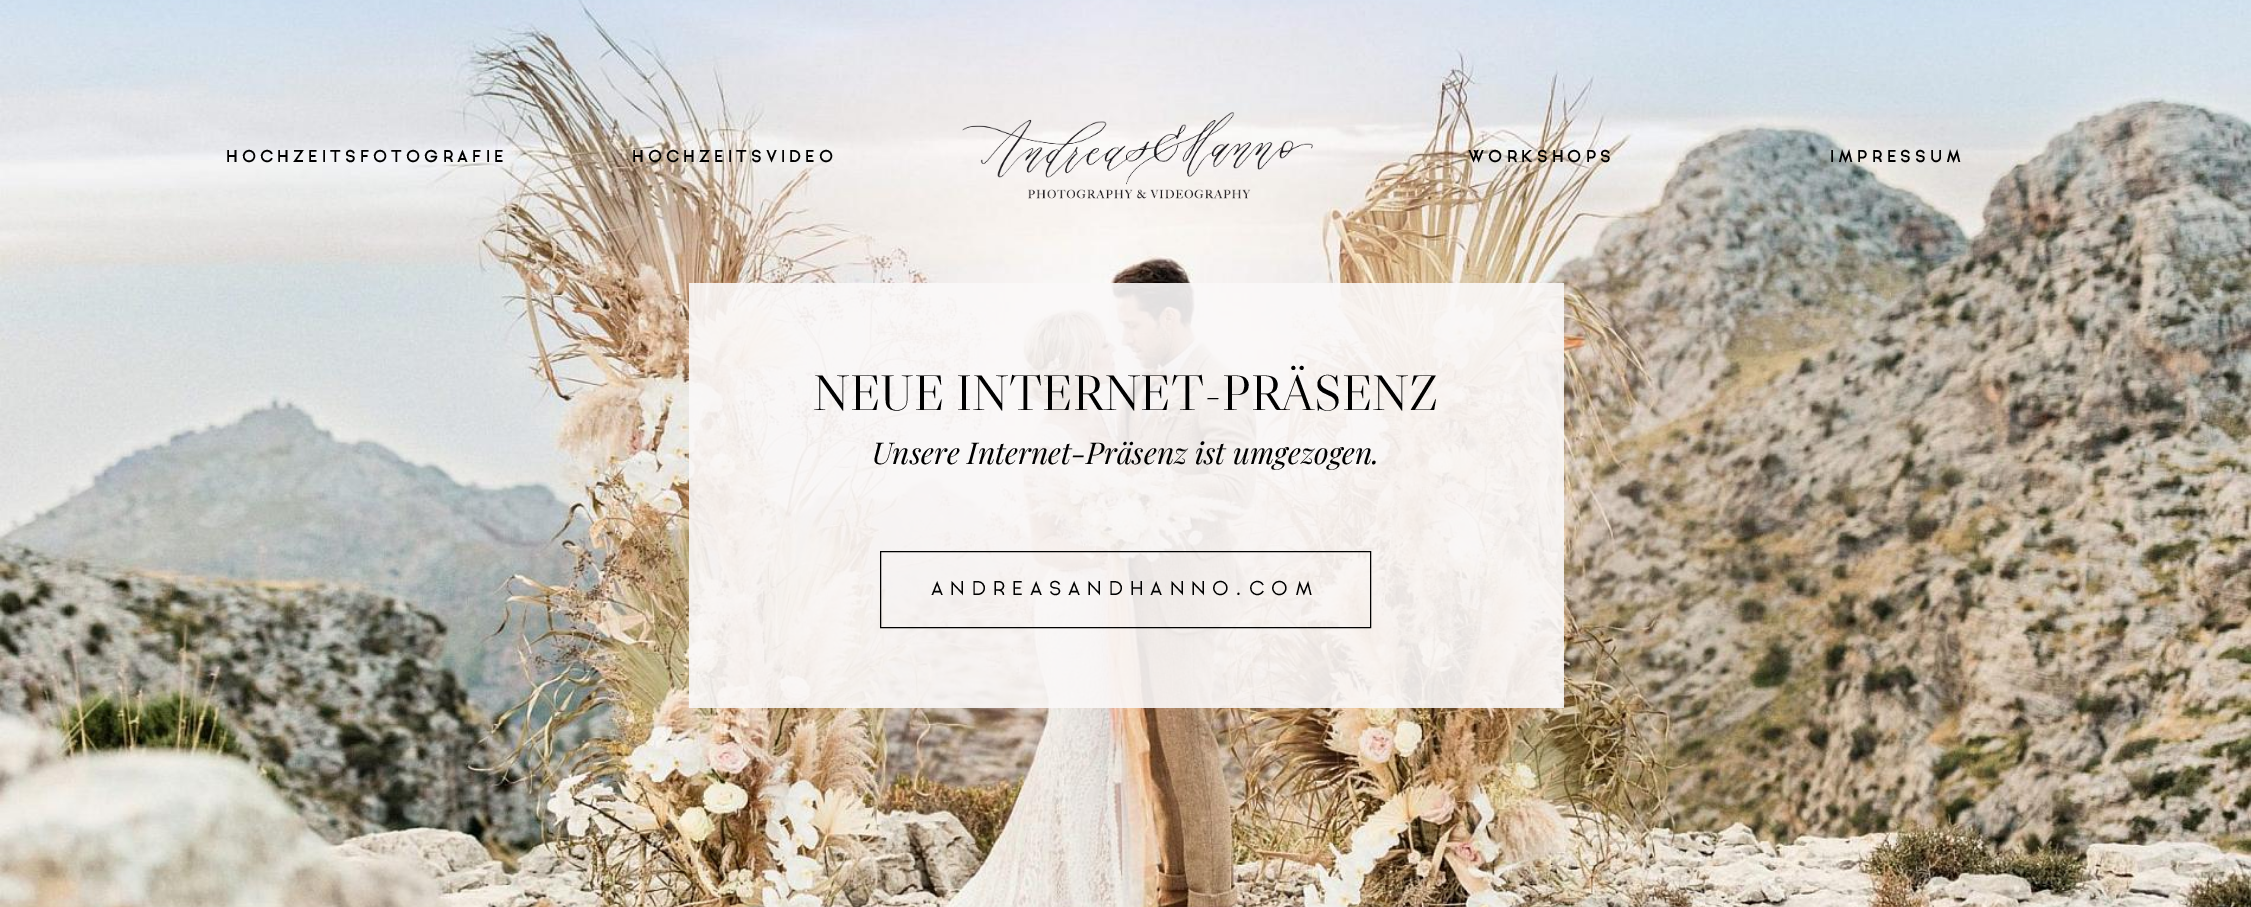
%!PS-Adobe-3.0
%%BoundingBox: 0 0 2251 907
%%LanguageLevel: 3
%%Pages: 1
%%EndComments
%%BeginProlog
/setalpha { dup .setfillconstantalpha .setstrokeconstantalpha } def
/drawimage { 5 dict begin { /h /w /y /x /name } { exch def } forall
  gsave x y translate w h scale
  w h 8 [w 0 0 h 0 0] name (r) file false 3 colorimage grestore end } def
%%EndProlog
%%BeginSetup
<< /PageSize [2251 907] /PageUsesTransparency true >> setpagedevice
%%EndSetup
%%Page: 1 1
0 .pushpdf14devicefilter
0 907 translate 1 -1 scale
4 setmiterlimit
1 setgray
0 0 2251 907 rectfill
(images/2.raw) 0 0 2251 907 drawimage
(images/1.raw) 962 112 351 87 drawimage
0.9 setalpha
0.98 0.973 0.973 setrgbcolor
689 283 875 425 rectfill
1 setalpha
0 setgray
880.5 551.5 490 76 rectstroke
/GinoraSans-Bold [16.25 0 0 -16.25 0 0] selectfont
226 162 moveto 4.1 0 (HOCHZEITSFOTOGRAFIE) ashow
632 162 moveto 4.1 0 (HOCHZEITSVIDEO) ashow
1468 162 moveto 4.1 0 (WORKSHOPS) ashow
1830 162 moveto 4.1 0 (IMPRESSUM) ashow
/LibreCaslonDisplay-Regular [50 0 0 -50 0 0] selectfont
813 410 moveto (NEUE INTERNET-PRÄSENZ) show
/PlayfairDisplay-Italic [30 0 0 -30 0 0] selectfont
872 464 moveto (Unsere Internet-Präsenz ist umgezogen.) show
/GinoraSans-Regular [20 0 0 -20 0 0] selectfont
931 595 moveto 7 0 (ANDREASANDHANNO.COM) ashow
.poppdf14devicefilter showpage
%%EOF
